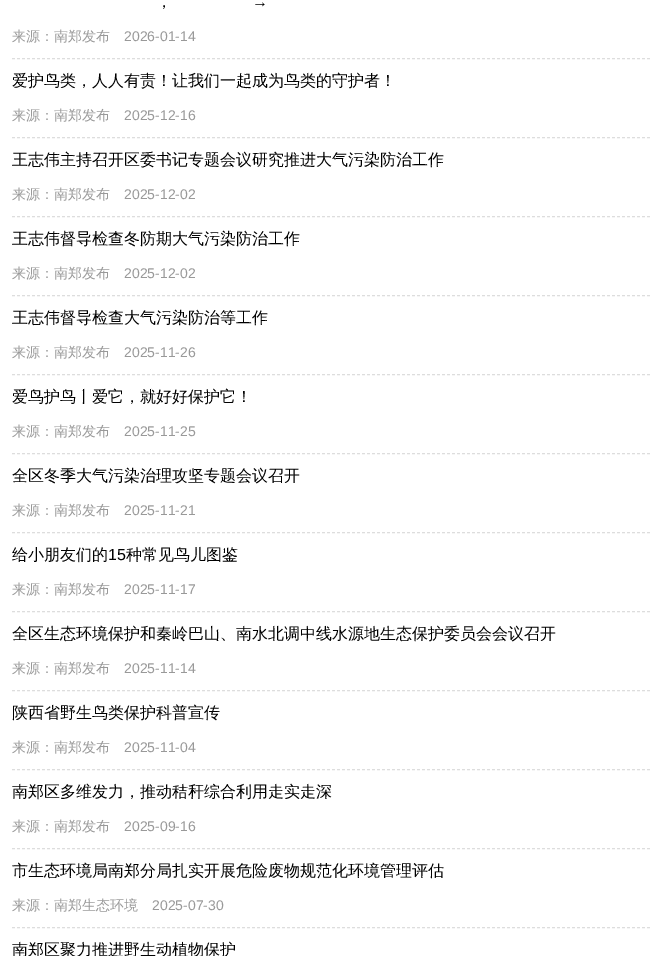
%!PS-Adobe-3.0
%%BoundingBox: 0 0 662 956
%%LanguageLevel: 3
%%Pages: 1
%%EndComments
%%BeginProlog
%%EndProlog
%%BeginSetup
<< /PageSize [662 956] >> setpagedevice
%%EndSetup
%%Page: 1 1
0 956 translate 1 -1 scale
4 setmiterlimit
1 setgray
0 0 662 956 rectfill
0.867 setgray
[3 2] 0 setdash
newpath 12 58.5 moveto 650 58.5 lineto stroke
newpath 12 137.5 moveto 650 137.5 lineto stroke
newpath 12 216.5 moveto 650 216.5 lineto stroke
newpath 12 295.5 moveto 650 295.5 lineto stroke
newpath 12 374.5 moveto 650 374.5 lineto stroke
newpath 12 453.5 moveto 650 453.5 lineto stroke
newpath 12 532.5 moveto 650 532.5 lineto stroke
newpath 12 611.5 moveto 650 611.5 lineto stroke
newpath 12 690.5 moveto 650 690.5 lineto stroke
newpath 12 769.5 moveto 650 769.5 lineto stroke
newpath 12 848.5 moveto 650 848.5 lineto stroke
newpath 12 927.5 moveto 650 927.5 lineto stroke
/LiberationSans-Regular [16 0 0 -16 0 0] selectfont
0 setgray
252 7 moveto (→) show
/WenQuanYiZenHei-Medium [16 0 0 -16 0 0] selectfont
156 7 moveto (，) show
/WenQuanYiZenHei-Medium [14 0 0 -14 0 0] selectfont
0.6 setgray
12 41 moveto (来源：南郑发布) show
/LiberationSans-Regular [14 0 0 -14 0 0] selectfont
124 41 moveto (2026-01-14) show
/WenQuanYiZenHei-Medium [16 0 0 -16 0 0] selectfont
0 setgray
12 86 moveto (爱护鸟类，人人有责！让我们一起成为鸟类的守护者！) show
/WenQuanYiZenHei-Medium [14 0 0 -14 0 0] selectfont
0.6 setgray
12 120 moveto (来源：南郑发布) show
/LiberationSans-Regular [14 0 0 -14 0 0] selectfont
124 120 moveto (2025-12-16) show
/WenQuanYiZenHei-Medium [16 0 0 -16 0 0] selectfont
0 setgray
12 165 moveto (王志伟主持召开区委书记专题会议研究推进大气污染防治工作) show
/WenQuanYiZenHei-Medium [14 0 0 -14 0 0] selectfont
0.6 setgray
12 199 moveto (来源：南郑发布) show
/LiberationSans-Regular [14 0 0 -14 0 0] selectfont
124 199 moveto (2025-12-02) show
/WenQuanYiZenHei-Medium [16 0 0 -16 0 0] selectfont
0 setgray
12 244 moveto (王志伟督导检查冬防期大气污染防治工作) show
/WenQuanYiZenHei-Medium [14 0 0 -14 0 0] selectfont
0.6 setgray
12 278 moveto (来源：南郑发布) show
/LiberationSans-Regular [14 0 0 -14 0 0] selectfont
124 278 moveto (2025-12-02) show
/WenQuanYiZenHei-Medium [16 0 0 -16 0 0] selectfont
0 setgray
12 323 moveto (王志伟督导检查大气污染防治等工作) show
/WenQuanYiZenHei-Medium [14 0 0 -14 0 0] selectfont
0.6 setgray
12 357 moveto (来源：南郑发布) show
/LiberationSans-Regular [14 0 0 -14 0 0] selectfont
124 357 moveto (2025-11-26) show
/WenQuanYiZenHei-Medium [16 0 0 -16 0 0] selectfont
0 setgray
12 402 moveto (爱鸟护鸟丨爱它，就好好保护它！) show
/WenQuanYiZenHei-Medium [14 0 0 -14 0 0] selectfont
0.6 setgray
12 436 moveto (来源：南郑发布) show
/LiberationSans-Regular [14 0 0 -14 0 0] selectfont
124 436 moveto (2025-11-25) show
/WenQuanYiZenHei-Medium [16 0 0 -16 0 0] selectfont
0 setgray
12 481 moveto (全区冬季大气污染治理攻坚专题会议召开) show
/WenQuanYiZenHei-Medium [14 0 0 -14 0 0] selectfont
0.6 setgray
12 515 moveto (来源：南郑发布) show
/LiberationSans-Regular [14 0 0 -14 0 0] selectfont
124 515 moveto (2025-11-21) show
/WenQuanYiZenHei-Medium [16 0 0 -16 0 0] selectfont
0 setgray
12 560 moveto (给小朋友们的) show
/LiberationSans-Regular [16 0 0 -16 0 0] selectfont
108 560 moveto (15) show
/WenQuanYiZenHei-Medium [16 0 0 -16 0 0] selectfont
126 560 moveto (种常见鸟儿图鉴) show
/WenQuanYiZenHei-Medium [14 0 0 -14 0 0] selectfont
0.6 setgray
12 594 moveto (来源：南郑发布) show
/LiberationSans-Regular [14 0 0 -14 0 0] selectfont
124 594 moveto (2025-11-17) show
/WenQuanYiZenHei-Medium [16 0 0 -16 0 0] selectfont
0 setgray
12 639 moveto (全区生态环境保护和秦岭巴山、南水北调中线水源地生态保护委员会会议召开) show
/WenQuanYiZenHei-Medium [14 0 0 -14 0 0] selectfont
0.6 setgray
12 673 moveto (来源：南郑发布) show
/LiberationSans-Regular [14 0 0 -14 0 0] selectfont
124 673 moveto (2025-11-14) show
/WenQuanYiZenHei-Medium [16 0 0 -16 0 0] selectfont
0 setgray
12 718 moveto (陕西省野生鸟类保护科普宣传) show
/WenQuanYiZenHei-Medium [14 0 0 -14 0 0] selectfont
0.6 setgray
12 752 moveto (来源：南郑发布) show
/LiberationSans-Regular [14 0 0 -14 0 0] selectfont
124 752 moveto (2025-11-04) show
/WenQuanYiZenHei-Medium [16 0 0 -16 0 0] selectfont
0 setgray
12 797 moveto (南郑区多维发力，推动秸秆综合利用走实走深) show
/WenQuanYiZenHei-Medium [14 0 0 -14 0 0] selectfont
0.6 setgray
12 831 moveto (来源：南郑发布) show
/LiberationSans-Regular [14 0 0 -14 0 0] selectfont
124 831 moveto (2025-09-16) show
/WenQuanYiZenHei-Medium [16 0 0 -16 0 0] selectfont
0 setgray
12 876 moveto (市生态环境局南郑分局扎实开展危险废物规范化环境管理评估) show
/WenQuanYiZenHei-Medium [14 0 0 -14 0 0] selectfont
0.6 setgray
12 910 moveto (来源：南郑生态环境) show
/LiberationSans-Regular [14 0 0 -14 0 0] selectfont
152 910 moveto (2025-07-30) show
/WenQuanYiZenHei-Medium [16 0 0 -16 0 0] selectfont
0 setgray
12 955 moveto (南郑区聚力推进野生动植物保护) show
showpage
%%EOF
